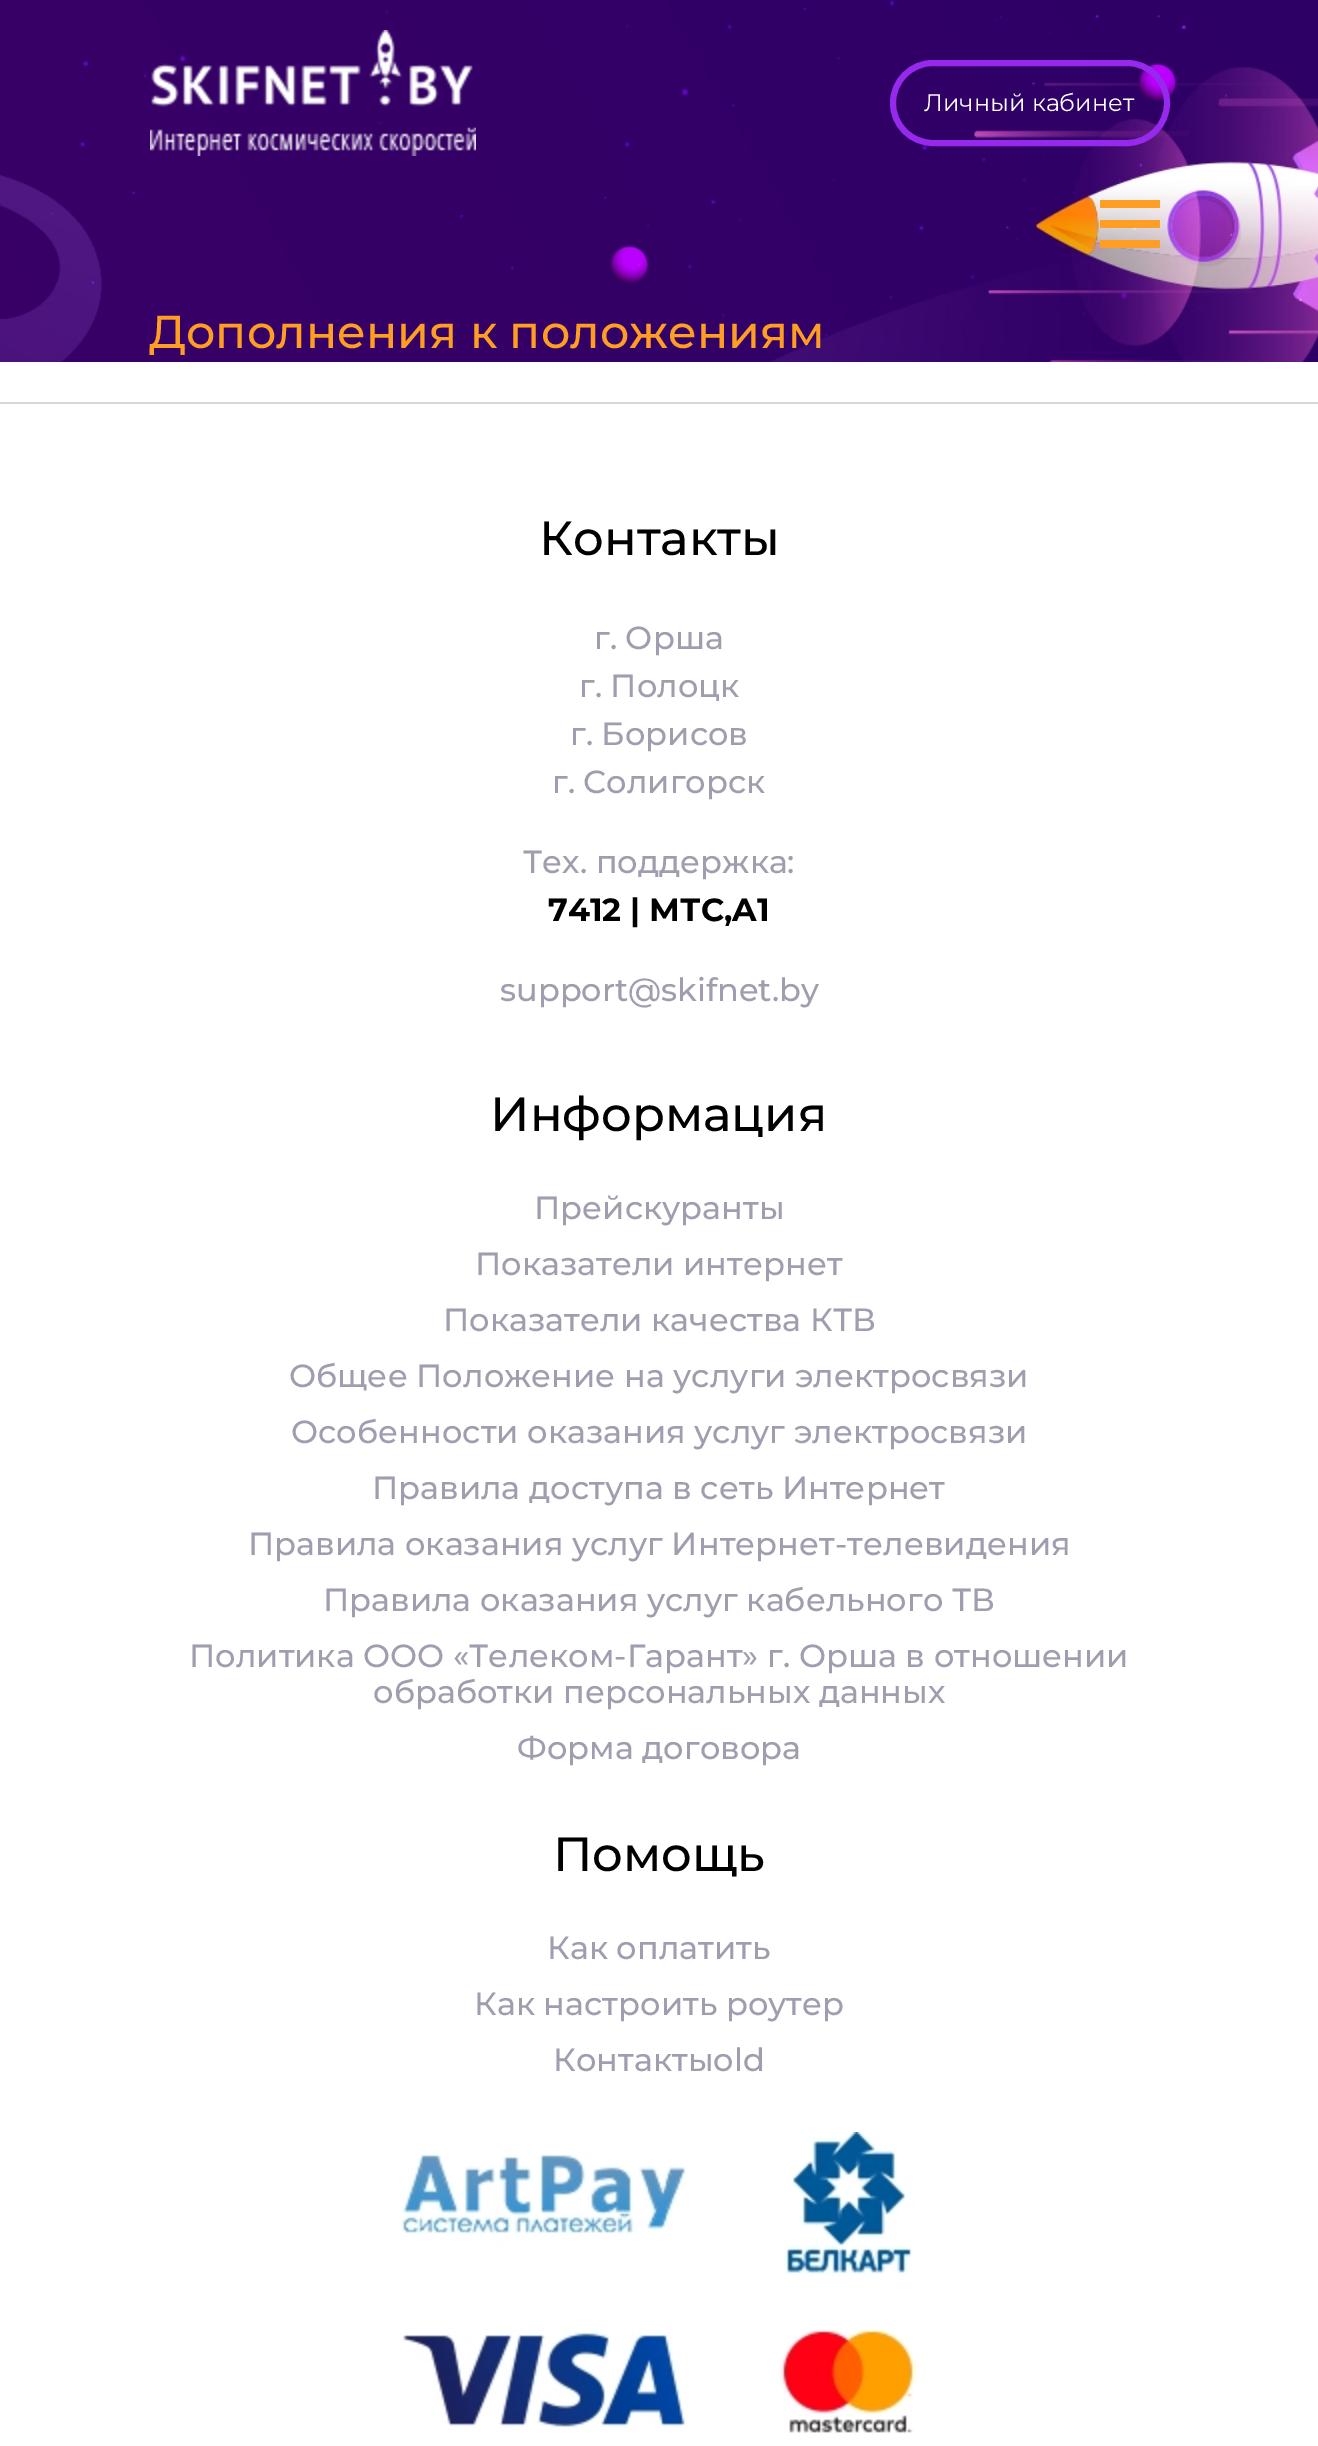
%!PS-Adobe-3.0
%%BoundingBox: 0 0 1318 2446
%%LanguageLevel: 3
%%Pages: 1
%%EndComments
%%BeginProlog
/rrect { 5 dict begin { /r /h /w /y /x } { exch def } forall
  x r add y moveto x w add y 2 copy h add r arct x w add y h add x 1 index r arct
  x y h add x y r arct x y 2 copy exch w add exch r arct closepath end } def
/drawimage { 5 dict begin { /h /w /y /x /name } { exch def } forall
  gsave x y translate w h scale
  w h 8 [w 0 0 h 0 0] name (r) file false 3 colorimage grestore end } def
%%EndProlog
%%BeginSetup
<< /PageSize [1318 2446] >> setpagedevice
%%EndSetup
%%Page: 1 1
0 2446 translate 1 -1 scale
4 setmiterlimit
1 setgray
0 0 1318 2446 rectfill
(images/1.raw) 0 0 1318 362 drawimage
(images/2.raw) 150 30 326 126 drawimage
0.588 0.161 0.925 setrgbcolor
6 setlinewidth
893 63 274 80 40 rrect stroke
1 0.62 0.141 setrgbcolor
1100 200 60 8 rectfill
1100 220 60 8 rectfill
1100 240 60 8 rectfill
0.839 0.839 0.867 setrgbcolor
0 402 1318 2 rectfill
(images/3.raw) 402 2132 514 301 drawimage
/Montserrat-Regular [24 0 0 -24 0 0] selectfont
1 setgray
924 111 moveto (Личный кабинет) show
/Montserrat-Medium [46 0 0 -46 0 0] selectfont
1 0.62 0.141 setrgbcolor
149 348 moveto (Дополнения к положениям) show
/Montserrat-Medium [48 0 0 -48 0 0] selectfont
0 setgray
539 555 moveto (Контакты) show
/Montserrat-Medium [32 0 0 -32 0 0] selectfont
0.624 0.62 0.686 setrgbcolor
594 649 moveto (г. Орша) show
579 697 moveto (г. Полоцк) show
570 745 moveto (г. Борисов) show
552 793 moveto (г. Солигорск) show
523 873 moveto (Тех. поддержка:) show
/Montserrat-Bold [32 0 0 -32 0 0] selectfont
0 setgray
548 921 moveto (7412 | МТС,A1) show
/Montserrat-Medium [32 0 0 -32 0 0] selectfont
0.624 0.62 0.686 setrgbcolor
500 1001 moveto (support@skifnet.by) show
/Montserrat-Medium [48 0 0 -48 0 0] selectfont
0 setgray
490 1131 moveto (Информация) show
/Montserrat-Medium [32 0 0 -32 0 0] selectfont
0.624 0.62 0.686 setrgbcolor
534 1219 moveto (Прейскуранты) show
475 1275 moveto (Показатели интернет) show
443 1331 moveto (Показатели качества КТВ) show
289 1387 moveto (Общее Положение на услуги электросвязи) show
291 1443 moveto (Особенности оказания услуг электросвязи) show
372 1499 moveto (Правила доступа в сеть Интернет) show
248 1555 moveto (Правила оказания услуг Интернет-телевидения) show
323 1611 moveto (Правила оказания услуг кабельного ТВ) show
189 1667 moveto (Политика ООО «Телеком-Гарант» г. Орша в отношении) show
373 1703 moveto (обработки персональных данных) show
517 1759 moveto (Форма договора) show
/Montserrat-Medium [48 0 0 -48 0 0] selectfont
0 setgray
553 1871 moveto (Помощь) show
/Montserrat-Medium [32 0 0 -32 0 0] selectfont
0.624 0.62 0.686 setrgbcolor
547 1959 moveto (Как оплатить) show
474 2015 moveto (Как настроить роутер) show
553 2071 moveto (Контактыold) show
showpage
%%EOF
